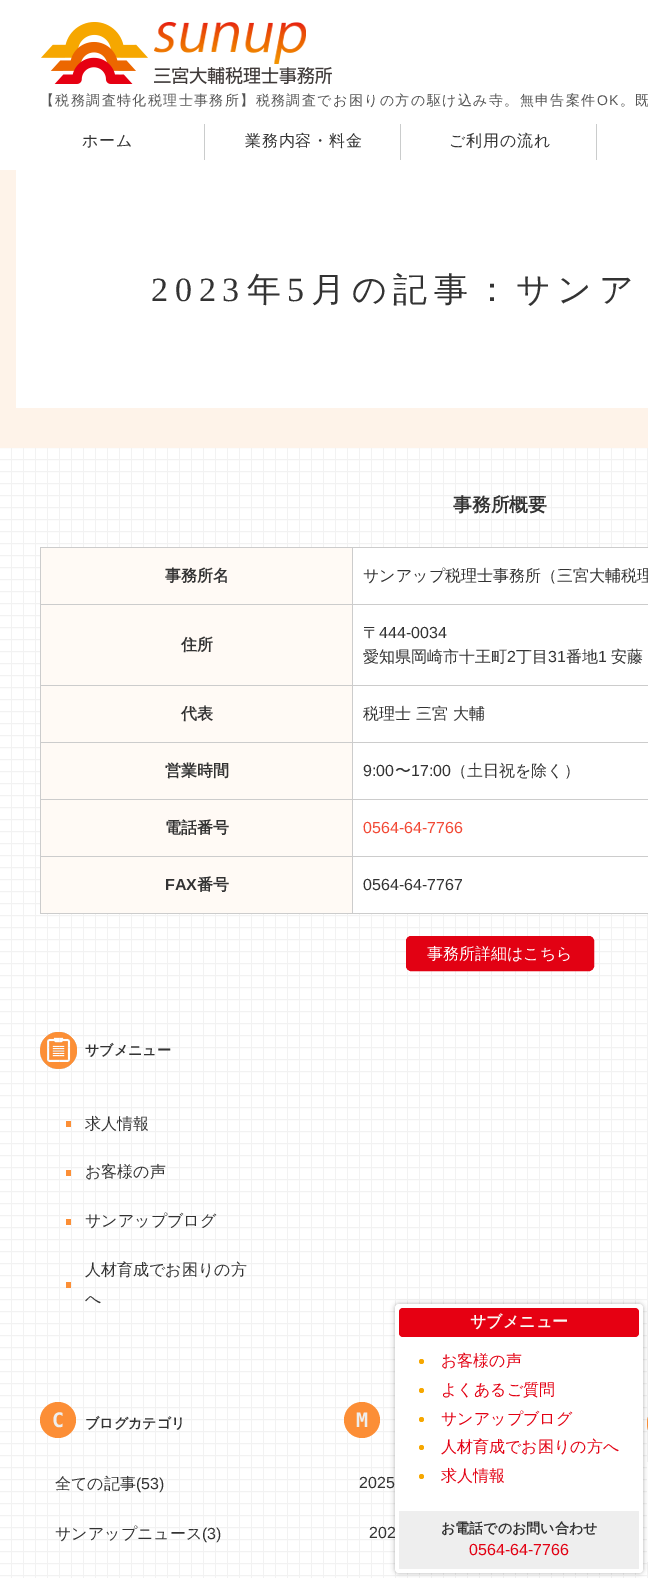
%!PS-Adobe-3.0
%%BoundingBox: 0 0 648 1578
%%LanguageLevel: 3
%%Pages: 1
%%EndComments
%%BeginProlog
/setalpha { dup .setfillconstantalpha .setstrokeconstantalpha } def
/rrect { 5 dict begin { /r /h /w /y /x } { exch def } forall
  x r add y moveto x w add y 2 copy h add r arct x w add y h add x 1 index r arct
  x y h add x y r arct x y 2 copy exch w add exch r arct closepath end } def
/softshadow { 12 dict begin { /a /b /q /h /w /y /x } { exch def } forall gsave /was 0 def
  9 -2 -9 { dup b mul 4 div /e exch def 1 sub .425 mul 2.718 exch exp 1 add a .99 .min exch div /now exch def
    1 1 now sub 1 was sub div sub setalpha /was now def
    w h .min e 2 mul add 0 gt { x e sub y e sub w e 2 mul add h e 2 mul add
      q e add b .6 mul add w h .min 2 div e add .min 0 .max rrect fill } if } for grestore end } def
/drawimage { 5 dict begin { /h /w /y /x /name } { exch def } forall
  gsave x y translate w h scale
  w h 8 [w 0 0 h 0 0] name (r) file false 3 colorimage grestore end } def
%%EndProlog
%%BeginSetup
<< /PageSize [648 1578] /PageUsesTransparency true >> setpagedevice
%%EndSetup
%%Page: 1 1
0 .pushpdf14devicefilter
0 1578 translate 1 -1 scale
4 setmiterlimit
1 setgray
0 0 648 1578 rectfill
(images/1.raw) 41 22 291 62 drawimage
0.792 0.8 0.8 setrgbcolor
204 124 1 36 rectfill
400 124 1 36 rectfill
596 124 1 36 rectfill
0.996 0.953 0.914 setrgbcolor
0 170 648 278 rectfill
1 setgray
16 170 632 238 rectfill
(images/2.raw) 0 448 648 1130 drawimage
0.8 setgray
40 547 608 1 rectfill
40 547 1 367 rectfill
1 0.98 0.961 setrgbcolor
41 548 311 56 rectfill
0.8 setgray
352 913 296 1 rectfill
352 856 1 58 rectfill
352 856 296 1 rectfill
352 799 1 58 rectfill
352 799 296 1 rectfill
352 742 1 58 rectfill
352 742 296 1 rectfill
352 685 1 58 rectfill
352 685 296 1 rectfill
352 604 1 82 rectfill
352 604 296 1 rectfill
352 547 1 58 rectfill
40 604 313 1 rectfill
1 setgray
353 548 295 56 rectfill
1 0.98 0.961 setrgbcolor
41 605 311 80 rectfill
0.8 setgray
40 685 313 1 rectfill
1 setgray
353 605 295 80 rectfill
1 0.98 0.961 setrgbcolor
41 686 311 56 rectfill
0.8 setgray
40 742 313 1 rectfill
1 setgray
353 686 295 56 rectfill
1 0.98 0.961 setrgbcolor
41 743 311 56 rectfill
0.8 setgray
40 799 313 1 rectfill
1 setgray
353 743 295 56 rectfill
1 0.98 0.961 setrgbcolor
41 800 311 56 rectfill
0.8 setgray
40 856 313 1 rectfill
1 setgray
353 800 295 56 rectfill
1 0.98 0.961 setrgbcolor
41 857 311 56 rectfill
0.8 setgray
40 913 313 1 rectfill
1 setgray
353 857 295 56 rectfill
0.886 0.004 0.075 setrgbcolor
406.5 936.5 187 34 4.5 rrect gsave fill grestore
stroke
(images/4.raw) 647 1417 1 13 drawimage
1 setgray
647 1462 1 100 rectfill
0 setgray
395 1304 248 269 4 2.5 0.3 softshadow
1 setgray
395 1304 248 269 4 rrect fill
0.902 0 0.071 setrgbcolor
399 1308 240 29 4 rrect fill
0.965 0.655 0 setrgbcolor
newpath 421.5 1361.5 2.5 0 360 arc closepath fill
newpath 421.5 1390.5 2.5 0 360 arc closepath fill
newpath 421.5 1419.5 2.5 0 360 arc closepath fill
newpath 421.5 1447.5 2.5 0 360 arc closepath fill
newpath 421.5 1476.5 2.5 0 360 arc closepath fill
0.933 setgray
399 1511 240 58 rectfill
(images/3.raw) 40 1032 37 37 drawimage
0.988 0.561 0.212 setrgbcolor
66 1121 5 6 rectfill
66 1170 5 6 rectfill
66 1219 5 6 rectfill
66 1282 5 6 rectfill
0.988 0.557 0.212 setrgbcolor
newpath 58 1420 18 0 360 arc closepath fill
newpath 362 1420 18 0 360 arc closepath fill
/WenQuanYiZenHei-Medium [14 0 0 -14 0 0] selectfont
0.333 setgray
40 105 moveto 1.4 0 (【税務調査特化税理士事務所】税務調査でお困りの方の駆け込み寺。無申告案件) ashow
/LiberationSans-Regular [14 0 0 -14 0 0] selectfont
597 105 moveto 1.4 0 (OK) ashow
/WenQuanYiZenHei-Medium [14 0 0 -14 0 0] selectfont
620 105 moveto 1.4 0 (。既) ashow
/WenQuanYiZenHei-Medium [16 0 0 -16 0 0] selectfont
0.2 setgray
82 146 moveto 0.75 0 (ホーム) ashow
245 146 moveto 0.75 0 (業務内容・料金) ashow
449 146 moveto 0.75 0 (ご利用の流れ) ashow
/LiberationSerif-Regular [34 0 0 -34 0 0] selectfont
151 301 moveto 6.75 0 (2023) ashow
/WenQuanYiZenHei-Medium [34 0 0 -34 0 0] selectfont
247 301 moveto 6.75 0 (年) ashow
/LiberationSerif-Regular [34 0 0 -34 0 0] selectfont
287 301 moveto 6.75 0 (5) ashow
/WenQuanYiZenHei-Medium [34 0 0 -34 0 0] selectfont
311 301 moveto 6.75 0 (月の記事：サンア) ashow
/WenQuanYiZenHei-Bold [18.75 0 0 -18.75 0 0] selectfont
453 511 moveto (事務所概要) show
/WenQuanYiZenHei-Bold [16 0 0 -16 0 0] selectfont
165 581 moveto (事務所名) show
/WenQuanYiZenHei-Medium [16 0 0 -16 0 0] selectfont
363 581 moveto (サンアップ税理士事務所（三宮大輔税理) show
/WenQuanYiZenHei-Bold [16 0 0 -16 0 0] selectfont
181 650 moveto (住所) show
/WenQuanYiZenHei-Medium [16 0 0 -16 0 0] selectfont
363 638 moveto (〒) show
/LiberationSans-Regular [16 0 0 -16 0 0] selectfont
379 638 moveto (444-0034) show
/WenQuanYiZenHei-Medium [16 0 0 -16 0 0] selectfont
363 662 moveto (愛知県岡崎市十王町) show
/LiberationSans-Regular [16 0 0 -16 0 0] selectfont
507 662 moveto (2) show
/WenQuanYiZenHei-Medium [16 0 0 -16 0 0] selectfont
516 662 moveto (丁目) show
/LiberationSans-Regular [16 0 0 -16 0 0] selectfont
548 662 moveto (31) show
/WenQuanYiZenHei-Medium [16 0 0 -16 0 0] selectfont
566 662 moveto (番地) show
/LiberationSans-Regular [16 0 0 -16 0 0] selectfont
598 662 moveto (1) show
/WenQuanYiZenHei-Medium [16 0 0 -16 0 0] selectfont
611 662 moveto (安藤) show
/WenQuanYiZenHei-Bold [16 0 0 -16 0 0] selectfont
181 719 moveto (代表) show
/WenQuanYiZenHei-Medium [16 0 0 -16 0 0] selectfont
363 719 moveto (税理士 三宮 大輔) show
/WenQuanYiZenHei-Bold [16 0 0 -16 0 0] selectfont
165 776 moveto (営業時間) show
/LiberationSans-Regular [16 0 0 -16 0 0] selectfont
363 776 moveto (9:00) show
/WenQuanYiZenHei-Medium [16 0 0 -16 0 0] selectfont
395 776 moveto (〜) show
/LiberationSans-Regular [16 0 0 -16 0 0] selectfont
411 776 moveto (17:00) show
/WenQuanYiZenHei-Medium [16 0 0 -16 0 0] selectfont
451 776 moveto (（土日祝を除く）) show
/WenQuanYiZenHei-Bold [16 0 0 -16 0 0] selectfont
165 833 moveto (電話番号) show
/LiberationSans-Regular [16 0 0 -16 0 0] selectfont
0.949 0.29 0.212 setrgbcolor
363 833 moveto (0564-64-7766) show
/LiberationSans-Bold [16 0 0 -16 0 0] selectfont
0.2 setgray
165 890 moveto (FAX) show
/WenQuanYiZenHei-Bold [16 0 0 -16 0 0] selectfont
197 890 moveto (番号) show
/LiberationSans-Regular [16 0 0 -16 0 0] selectfont
363 890 moveto (0564-64-7767) show
/WenQuanYiZenHei-Medium [16 0 0 -16 0 0] selectfont
1 setgray
427 959 moveto (事務所詳細はこちら) show
/WenQuanYiZenHei-Bold [16 0 0 -16 0 0] selectfont
0.984 0.969 0.949 setrgbcolor
470 1327 moveto (サブメニュー) show
/WenQuanYiZenHei-Medium [16 0 0 -16 0 0] selectfont
0.886 0.004 0.075 setrgbcolor
441 1366 moveto (お客様の声) show
441 1395 moveto (よくあるご質問) show
441 1424 moveto (サンアップブログ) show
441 1452 moveto (人材育成でお困りの方へ) show
441 1481 moveto (求人情報) show
/WenQuanYiZenHei-Bold [14 0 0 -14 0 0] selectfont
0.2 setgray
441 1533 moveto (お電話でのお問い合わせ) show
/LiberationSans-Regular [16 0 0 -16 0 0] selectfont
0.886 0.004 0.075 setrgbcolor
469 1555 moveto (0564-64-7766) show
/WenQuanYiZenHei-Bold [14 0 0 -14 0 0] selectfont
0.2 setgray
85 1055 moveto (サブメニュー) show
/WenQuanYiZenHei-Medium [16 0 0 -16 0 0] selectfont
85 1129 moveto (求人情報) show
85 1177 moveto (お客様の声) show
85 1226 moveto (サンアップブログ) show
85 1275 moveto (人材育成でお困りの方) show
85 1304 moveto (へ) show
/DejaVuSansMono-Bold [20 0 0 -20 0 0] selectfont
0.933 setgray
52 1427 moveto (C) show
/WenQuanYiZenHei-Bold [14 0 0 -14 0 0] selectfont
0.2 setgray
85 1428 moveto (ブログカテゴリ) show
/WenQuanYiZenHei-Medium [16 0 0 -16 0 0] selectfont
55 1489 moveto (全ての記事) show
/LiberationSans-Regular [16 0 0 -16 0 0] selectfont
136 1489 moveto (\(53\)) show
/WenQuanYiZenHei-Medium [16 0 0 -16 0 0] selectfont
55 1539 moveto (サンアップニュース) show
/LiberationSans-Regular [16 0 0 -16 0 0] selectfont
202 1539 moveto (\(3\)) show
/DejaVuSansMono-Bold [20 0 0 -20 0 0] selectfont
0.933 setgray
356 1427 moveto (M) show
/LiberationSans-Regular [16 0 0 -16 0 0] selectfont
0.2 setgray
359 1488 moveto (2025) show
369 1538 moveto (202) show
.poppdf14devicefilter showpage
%%EOF
